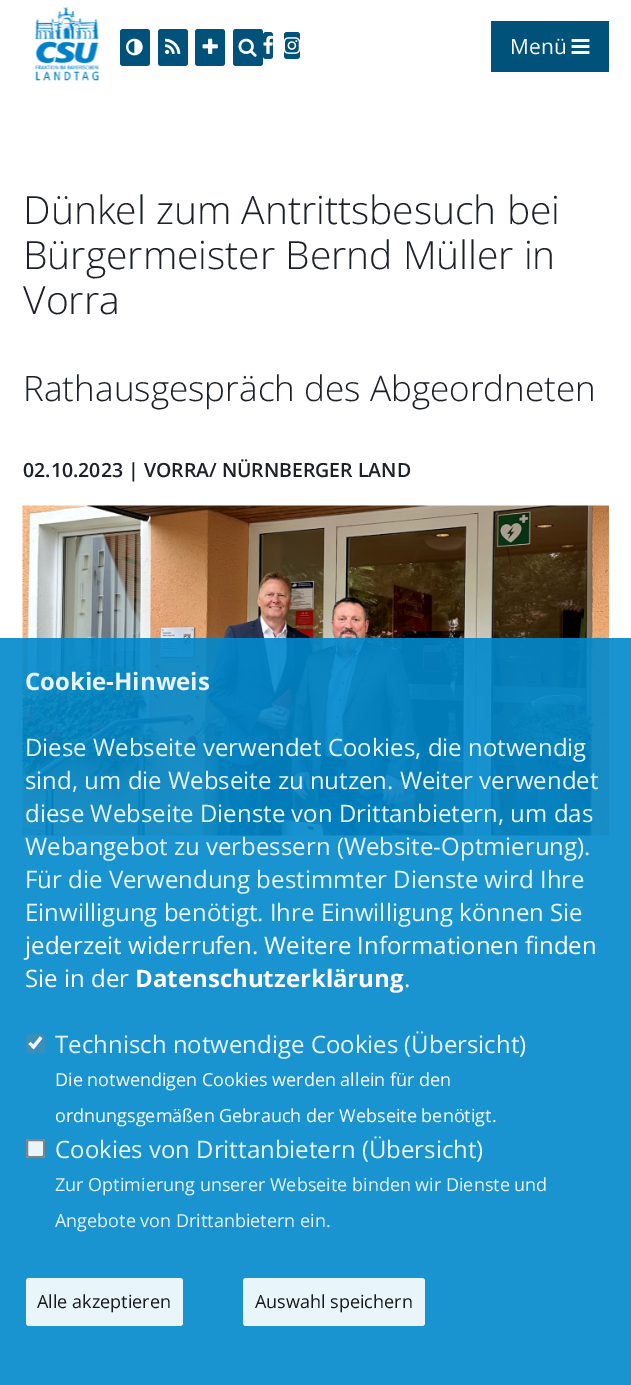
%!PS-Adobe-3.0
%%BoundingBox: 0 0 631 1385
%%LanguageLevel: 3
%%Pages: 1
%%EndComments
%%BeginProlog
/setalpha { dup .setfillconstantalpha .setstrokeconstantalpha } def
/rrect { 5 dict begin { /r /h /w /y /x } { exch def } forall
  x r add y moveto x w add y 2 copy h add r arct x w add y h add x 1 index r arct
  x y h add x y r arct x y 2 copy exch w add exch r arct closepath end } def
/drawimage { 5 dict begin { /h /w /y /x /name } { exch def } forall
  gsave x y translate w h scale
  w h 8 [w 0 0 h 0 0] name (r) file false 3 colorimage grestore end } def
%%EndProlog
%%BeginSetup
<< /PageSize [631 1385] /PageUsesTransparency true >> setpagedevice
%%EndSetup
%%Page: 1 1
0 .pushpdf14devicefilter
0 1385 translate 1 -1 scale
4 setmiterlimit
1 setgray
0 0 631 1385 rectfill
(images/1.raw) 35 7 64 74 drawimage
0 0.322 0.478 setrgbcolor
120 29 30 37 3 rrect fill
(images/2.raw) 126 38 17 18 drawimage
158 29 30 37 3 rrect fill
(images/3.raw) 165 38 16 16 drawimage
195 29 30 37 3 rrect fill
(images/4.raw) 202 38 16 16 drawimage
233 29 30 37 3 rrect fill
(images/5.raw) 238 38 19 19 drawimage
263 32 10 27 3 rrect fill
(images/6.raw) 263 35 10 19 drawimage
284 32 16 27 3 rrect fill
(images/7.raw) 284 37 16 17 drawimage
491 21 118 51 rectfill
(images/8.raw) 571 39 19 15 drawimage
(images/9.raw) 22 505 587 331 drawimage
0.9 setalpha
0 0.533 0.8 setrgbcolor
0 638 631 747 rectfill
1 setalpha
0.224 0.561 0.729 setrgbcolor
26 1034 19 19 3 rrect fill
1 setgray
3.1 setlinewidth
newpath 29.5 1043 moveto 33.5 1047 lineto 41 1037.5 lineto stroke
0.9 setalpha
26 1139 19 19 3 rrect fill
0.463 setgray
2 setlinewidth
27 1140 17 17 2 rrect stroke
1 setgray
26 1278 157 48 3 rrect fill
243 1278 182 48 3 rrect fill
/OpenSans-Regular [21 0 0 -21 0 0] selectfont
1 setalpha
510 54 moveto (Menü) show
/OpenSans-Light [39 0 0 -39 0 0] selectfont
0.114 0.129 0.153 setrgbcolor
23 224 moveto (Dünkel zum Antrittsbesuch bei) show
23 269 moveto (Bürgermeister Bernd Müller in) show
23 314 moveto (Vorra) show
/OpenSans-Light [35.1 0 0 -35.1 0 0] selectfont
23 401 moveto (Rathausgespräch des Abgeordneten) show
/OpenSans-SemiBold [19.5 0 0 -19.5 0 0] selectfont
23 477 moveto (02.10.2023 | VORRA/ NÜRNBERGER LAND) show
/OpenSans-Bold [24 0 0 -24 0 0] selectfont
0.91 0.957 0.98 setrgbcolor
25 690 moveto (Cookie-Hinweis) show
/OpenSans-Regular [24 0 0 -24 0 0] selectfont
25 756 moveto (Diese Webseite verwendet Cookies, die notwendig) show
25 789 moveto (sind, um die Webseite zu nutzen. Weiter verwendet) show
25 822 moveto (diese Webseite Dienste von Drittanbietern, um das) show
25 855 moveto (Webangebot zu verbessern \(Website-Optmierung\).) show
25 888 moveto (Für die Verwendung bestimmter Dienste wird Ihre) show
25 921 moveto (Einwilligung benötigt. Ihre Einwilligung können Sie) show
1 setgray
25 954 moveto (jederzeit widerrufen. Weitere Informationen finden) show
25 987 moveto (Sie in der) show
/OpenSans-Bold [24 0 0 -24 0 0] selectfont
135 987 moveto (Datenschutzerklärung) show
/OpenSans-Regular [24 0 0 -24 0 0] selectfont
404 987 moveto (.) show
0.91 0.957 0.98 setrgbcolor
55 1053 moveto (Technisch notwendige Cookies \(Übersicht) show
1 setgray
519 1053 moveto (\)) show
/OpenSans-Regular [18 0 0 -18 0 0] selectfont
55 1086 moveto (Die notwendigen Cookies werden allein für den) show
55 1122 moveto (ordnungsgemäßen Gebrauch der Webseite benötigt.) show
/OpenSans-Regular [24 0 0 -24 0 0] selectfont
0.91 0.957 0.98 setrgbcolor
55 1158 moveto (Cookies von Drittanbietern \(Übersicht\)) show
/OpenSans-Regular [18 0 0 -18 0 0] selectfont
55 1191 moveto (Zur Optimierung unserer Webseite binden wir Dienste und) show
55 1227 moveto (Angebote von Drittanbietern ein.) show
0.09 0.094 0.098 setrgbcolor
37 1308 moveto (Alle akzeptieren) show
255 1308 moveto (Auswahl speichern) show
.poppdf14devicefilter showpage
%%EOF
